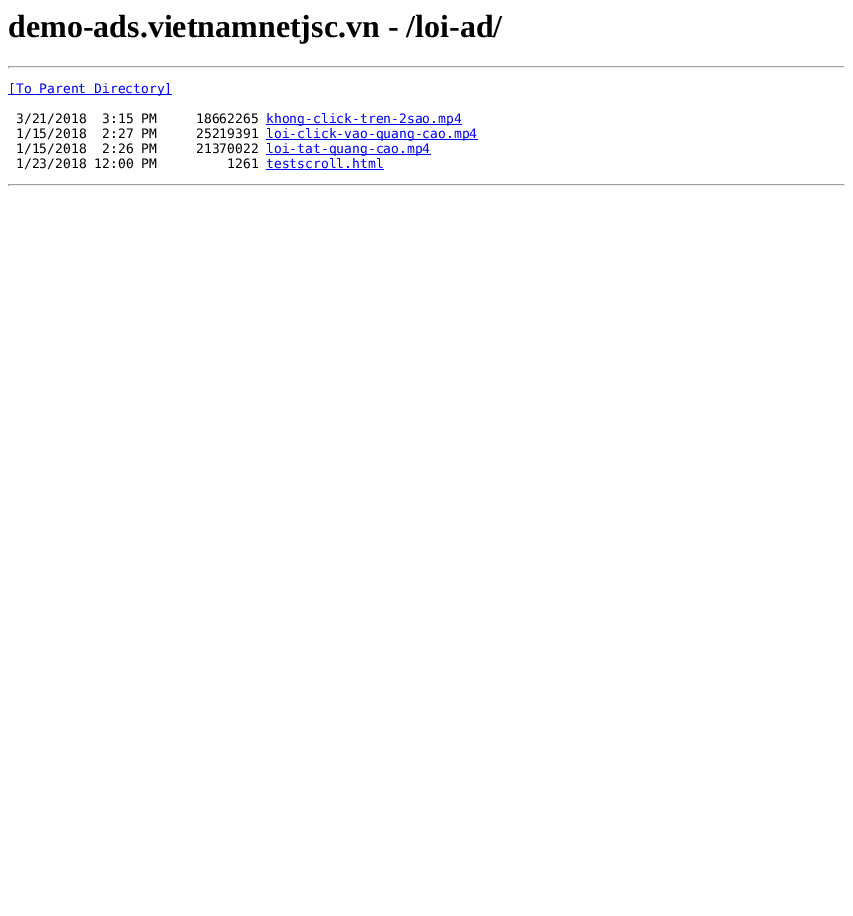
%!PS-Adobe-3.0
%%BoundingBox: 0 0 853 916
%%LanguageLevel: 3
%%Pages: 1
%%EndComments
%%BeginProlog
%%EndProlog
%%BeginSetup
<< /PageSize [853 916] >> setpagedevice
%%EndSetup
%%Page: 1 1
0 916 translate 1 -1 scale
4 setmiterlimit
1 setgray
0 0 853 916 rectfill
0.624 setgray
8 66 837 1 rectfill
0.933 setgray
844 66 1 2 rectfill
8 67 837 1 rectfill
0.624 setgray
8 66 1 2 rectfill
0 0 0.933 setrgbcolor
8 94 164 1 rectfill
266 124 196 1 rectfill
266 139 212 1 rectfill
266 154 165 1 rectfill
266 169 118 1 rectfill
0.624 setgray
8 184 837 1 rectfill
0.933 setgray
844 184 1 2 rectfill
8 185 837 1 rectfill
0.624 setgray
8 184 1 2 rectfill
/LiberationSerif-Bold [32 0 0 -32 0 0] selectfont
0 setgray
8 37 moveto (demo-ads.vietnamnetjsc.vn - /loi-ad/) show
/DejaVuSansMono-Regular [13 0 0 -13 0 0] selectfont
0 0 0.933 setrgbcolor
8 93 moveto ([To Parent Directory]) show
0 setgray
16 123 moveto (3/21/2018  3:15 PM     18662265) show
0 0 0.933 setrgbcolor
266 123 moveto (khong-click-tren-2sao.mp4) show
0 setgray
16 138 moveto (1/15/2018  2:27 PM     25219391) show
0 0 0.933 setrgbcolor
266 138 moveto (loi-click-vao-quang-cao.mp4) show
0 setgray
16 153 moveto (1/15/2018  2:26 PM     21370022) show
0 0 0.933 setrgbcolor
266 153 moveto (loi-tat-quang-cao.mp4) show
0 setgray
16 168 moveto (1/23/2018 12:00 PM         1261) show
0 0 0.933 setrgbcolor
266 168 moveto (testscroll.html) show
showpage
%%EOF
